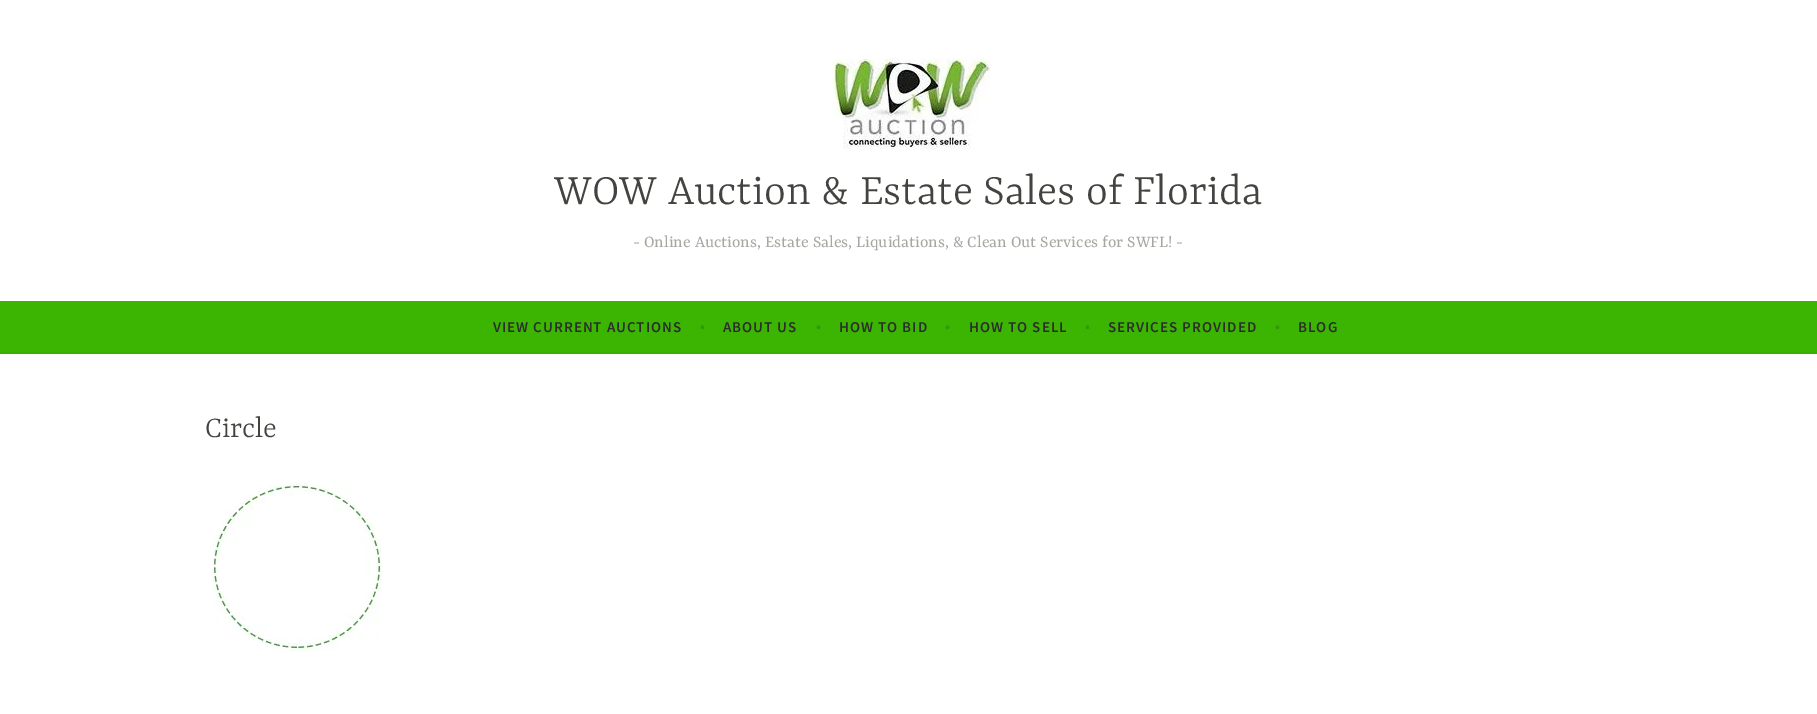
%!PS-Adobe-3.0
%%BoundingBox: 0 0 1817 714
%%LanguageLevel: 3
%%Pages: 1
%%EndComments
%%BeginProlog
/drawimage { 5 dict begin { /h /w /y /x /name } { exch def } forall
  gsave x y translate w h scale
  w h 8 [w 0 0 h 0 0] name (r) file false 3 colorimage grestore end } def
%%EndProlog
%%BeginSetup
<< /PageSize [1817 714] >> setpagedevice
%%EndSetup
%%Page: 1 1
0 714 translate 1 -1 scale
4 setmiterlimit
1 setgray
0 0 1817 714 rectfill
(images/1.raw) 831 57 160 93 drawimage
0.231 0.706 0.008 setrgbcolor
0 301 1817 51 rectfill
0.224 0.686 0.008 setrgbcolor
0 352 1817 2 rectfill
(images/2.raw) 212 483 170 169 drawimage
/Yrsa-Light [47 0 0 -47 0 0] selectfont
0.267 0.263 0.251 setrgbcolor
554 204 moveto (WOW Auction & Estate Sales of Florida) show
/Yrsa-Regular [18 0 0 -18 0 0] selectfont
0.659 0.651 0.631 setrgbcolor
633 247 moveto (- Online Auctions, Estate Sales, Liquidations, & Clean Out Services for SWFL! -) show
/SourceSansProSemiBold-SemiBold [15 0 0 -15 0 0] selectfont
0.176 setgray
493 332 moveto 1 0 (VIEW CURRENT AUCTIONS) ashow
/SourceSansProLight-Light [18 0 0 -18 0 0] selectfont
0.196 0.6 0.008 setrgbcolor
700 332 moveto (•) show
/SourceSansProSemiBold-SemiBold [15 0 0 -15 0 0] selectfont
0.176 setgray
723 332 moveto 1 0 (ABOUT US) ashow
/SourceSansProLight-Light [18 0 0 -18 0 0] selectfont
0.196 0.6 0.008 setrgbcolor
816 332 moveto (•) show
/SourceSansProSemiBold-SemiBold [15 0 0 -15 0 0] selectfont
0.176 setgray
839 332 moveto 1 0 (HOW TO BID) ashow
/SourceSansProLight-Light [18 0 0 -18 0 0] selectfont
0.196 0.6 0.008 setrgbcolor
945 332 moveto (•) show
/SourceSansProSemiBold-SemiBold [15 0 0 -15 0 0] selectfont
0.176 setgray
969 332 moveto 1 0 (HOW TO SELL) ashow
/SourceSansProLight-Light [18 0 0 -18 0 0] selectfont
0.196 0.6 0.008 setrgbcolor
1085 332 moveto (•) show
/SourceSansProSemiBold-SemiBold [15 0 0 -15 0 0] selectfont
0.176 setgray
1108 332 moveto 1 0 (SERVICES PROVIDED) ashow
/SourceSansProLight-Light [18 0 0 -18 0 0] selectfont
0.196 0.6 0.008 setrgbcolor
1275 332 moveto (•) show
/SourceSansProSemiBold-SemiBold [15 0 0 -15 0 0] selectfont
0.176 setgray
1298 332 moveto 1 0 (BLOG) ashow
/Yrsa-Light [32 0 0 -32 0 0] selectfont
0.267 0.263 0.251 setrgbcolor
205 437 moveto (Circle) show
showpage
%%EOF
